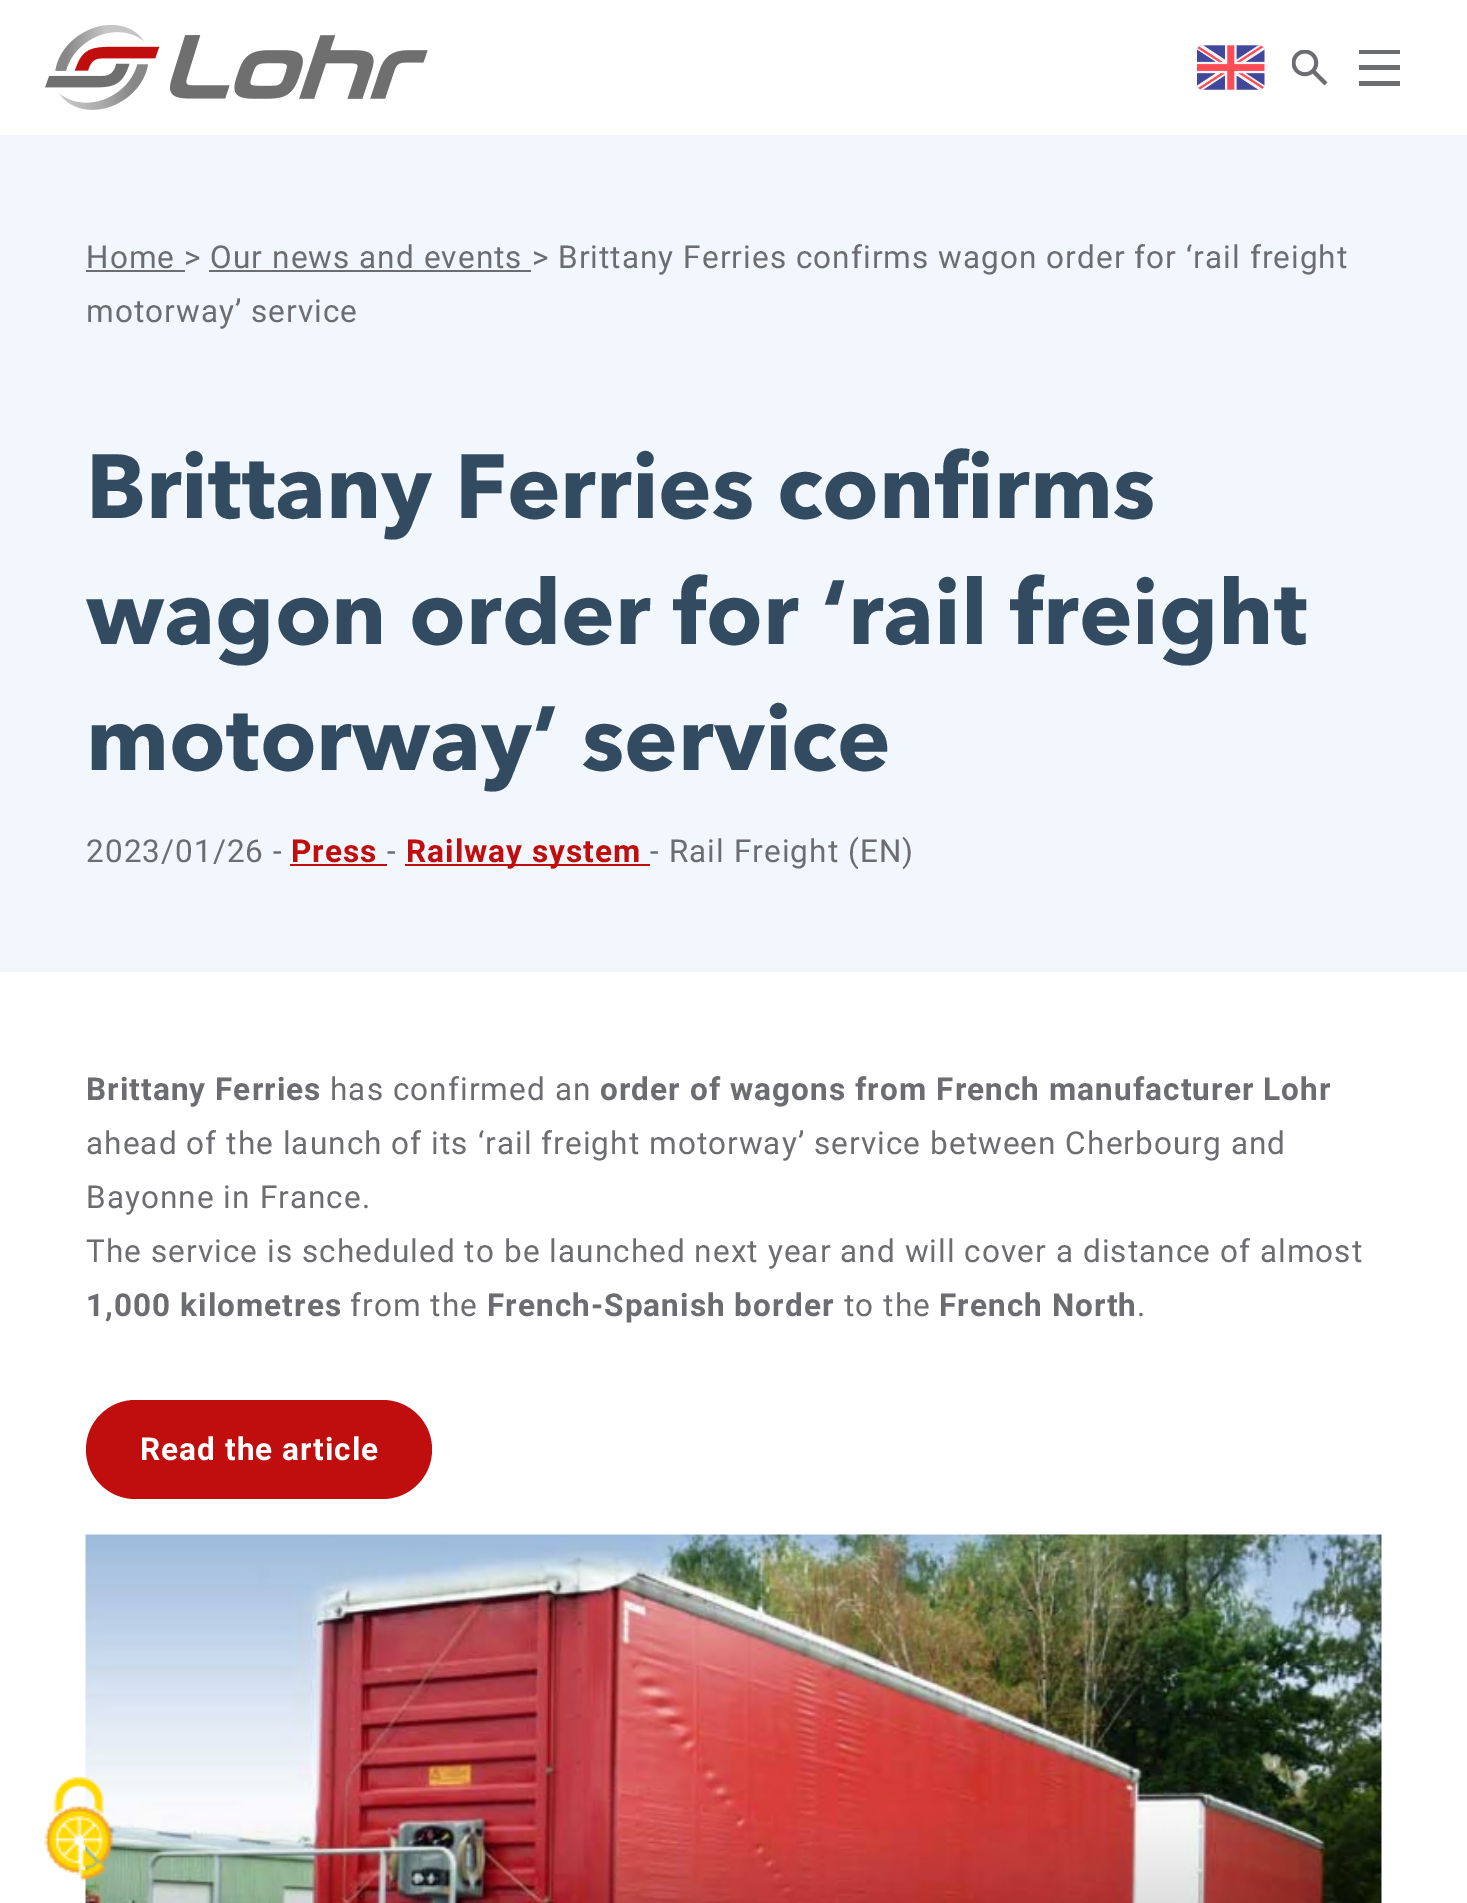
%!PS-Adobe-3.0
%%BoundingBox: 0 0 1467 1903
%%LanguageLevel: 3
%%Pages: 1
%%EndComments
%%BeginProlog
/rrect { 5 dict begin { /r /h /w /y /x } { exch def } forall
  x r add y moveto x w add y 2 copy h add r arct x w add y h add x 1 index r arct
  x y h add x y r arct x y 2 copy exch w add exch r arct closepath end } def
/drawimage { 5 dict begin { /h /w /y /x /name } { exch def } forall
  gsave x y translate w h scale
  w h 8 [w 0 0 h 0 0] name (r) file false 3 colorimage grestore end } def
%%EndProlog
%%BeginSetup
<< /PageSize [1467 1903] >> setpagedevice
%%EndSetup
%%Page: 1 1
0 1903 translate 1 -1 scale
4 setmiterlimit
1 setgray
0 0 1467 1903 rectfill
(images/1.raw) 45 25 383 85 drawimage
(images/2.raw) 1197 45 68 45 drawimage
(images/3.raw) 1292 50 36 36 drawimage
0.424 0.427 0.439 setrgbcolor
1359 50 41 4 rectfill
1359 65 41 5 rectfill
1359 81 41 5 rectfill
0.945 0.969 0.988 setrgbcolor
0 135 1467 837 rectfill
0.424 0.427 0.439 setrgbcolor
86 270 99 2 rectfill
209 270 322 2 rectfill
0.753 0.051 0.051 setrgbcolor
290 864 97 2 rectfill
405 864 245 2 rectfill
86 1400 346 99 49.5 rrect fill
(images/4.raw) 85 1534 1297 369 drawimage
(images/5.raw) 44 1777 70 105 drawimage
/Roboto-Regular [31.5 0 0 -31.5 0 0] selectfont
0.424 0.427 0.439 setrgbcolor
86 268 moveto 1.08 0 (Home > Our news and events > Brittany Ferries confirms wagon order for ‘rail freight) ashow
86 322 moveto 1.08 0 (motorway’ service) ashow
/AvenirNext-Bold [90 0 0 -90 0 0] selectfont
0.2 0.294 0.376 setrgbcolor
86 518 moveto (Brittany Ferries confirms) show
86 644 moveto (wagon order for ‘rail freight) show
86 770 moveto (motorway’ service) show
/Roboto-Regular [31.5 0 0 -31.5 0 0] selectfont
0.424 0.427 0.439 setrgbcolor
86 862 moveto 1.08 0 (2023/01/26 -) ashow
/Roboto-Bold [31.5 0 0 -31.5 0 0] selectfont
0.753 0.051 0.051 setrgbcolor
291 862 moveto 1.08 0 (Press) ashow
/Roboto-Regular [31.5 0 0 -31.5 0 0] selectfont
0.424 0.427 0.439 setrgbcolor
387 862 moveto 1.08 0 (-) ashow
/Roboto-Bold [31.5 0 0 -31.5 0 0] selectfont
0.753 0.051 0.051 setrgbcolor
406 862 moveto 1.08 0 (Railway system) ashow
/Roboto-Regular [31.5 0 0 -31.5 0 0] selectfont
0.424 0.427 0.439 setrgbcolor
650 862 moveto 1.08 0 (- Rail Freight \(EN\)) ashow
/Roboto-Bold [31.5 0 0 -31.5 0 0] selectfont
86 1100 moveto 1.08 0 (Brittany Ferries) ashow
/Roboto-Regular [31.5 0 0 -31.5 0 0] selectfont
330 1100 moveto 1.08 0 (has confirmed an) ashow
/Roboto-Bold [31.5 0 0 -31.5 0 0] selectfont
600 1100 moveto 1.08 0 (order of wagons from French manufacturer Lohr) ashow
/Roboto-Regular [31.5 0 0 -31.5 0 0] selectfont
86 1154 moveto 1.08 0 (ahead of the launch of its ‘rail freight motorway’ service between Cherbourg and) ashow
86 1208 moveto 1.08 0 (Bayonne in France.) ashow
86 1262 moveto 1.08 0 (The service is scheduled to be launched next year and will cover a distance of almost) ashow
/Roboto-Bold [31.5 0 0 -31.5 0 0] selectfont
86 1316 moveto 1.08 0 (1,000 kilometres) ashow
/Roboto-Regular [31.5 0 0 -31.5 0 0] selectfont
350 1316 moveto 1.08 0 (from the) ashow
/Roboto-Bold [31.5 0 0 -31.5 0 0] selectfont
487 1316 moveto 1.08 0 (French-Spanish border) ashow
/Roboto-Regular [31.5 0 0 -31.5 0 0] selectfont
844 1316 moveto 1.08 0 (to the) ashow
/Roboto-Bold [31.5 0 0 -31.5 0 0] selectfont
939 1316 moveto 1.08 0 (French North) ashow
/Roboto-Regular [31.5 0 0 -31.5 0 0] selectfont
1137 1316 moveto 1.08 0 (.) ashow
/Roboto-Bold [31.5 0 0 -31.5 0 0] selectfont
1 setgray
140 1460 moveto 1.08 0 (Read the article) ashow
showpage
%%EOF
